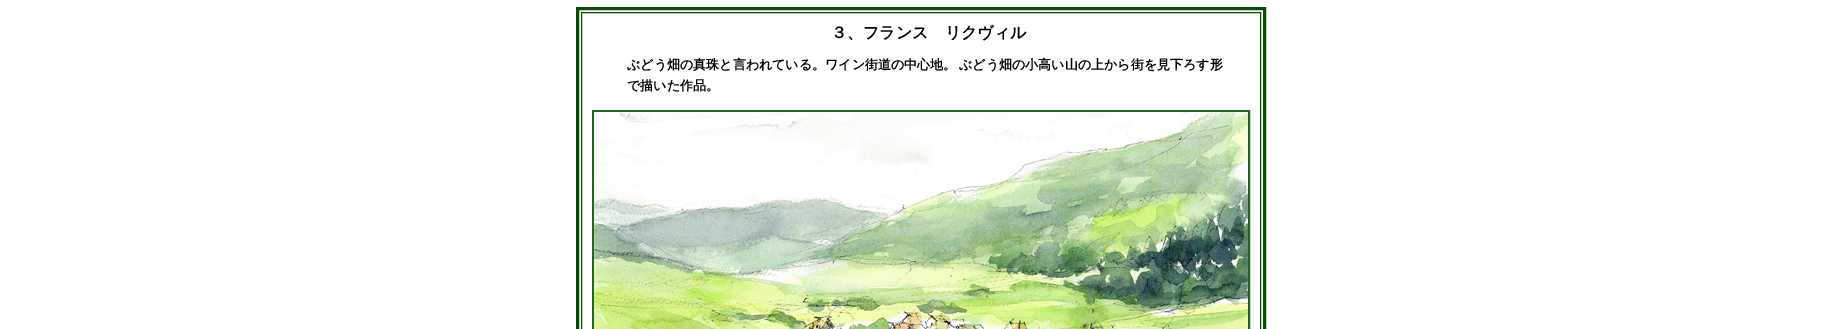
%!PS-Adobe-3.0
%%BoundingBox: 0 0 1842 329
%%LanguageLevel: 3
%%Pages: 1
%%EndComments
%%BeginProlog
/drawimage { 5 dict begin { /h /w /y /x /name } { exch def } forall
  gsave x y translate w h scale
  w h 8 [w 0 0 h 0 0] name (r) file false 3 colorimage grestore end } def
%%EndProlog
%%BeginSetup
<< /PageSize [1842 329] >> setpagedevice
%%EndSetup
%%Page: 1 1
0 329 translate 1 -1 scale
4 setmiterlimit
1 setgray
0 0 1842 329 rectfill
0.031 0.298 0.024 setrgbcolor
3 setlinewidth
577.5 8.5 687 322 rectstroke
1 setlinewidth
581.5 12.5 679 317 rectstroke
0.122 0.408 0.106 setrgbcolor
2 setlinewidth
593 111 656 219 rectstroke
(images/1.raw) 594 112 654 217 drawimage
/WenQuanYiZenHei-Bold [16 0 0 -16 0 0] selectfont
0 setgray
831 38 moveto (３、フランス　リクヴィル) show
/WenQuanYiZenHei-Bold [13 0 0 -13 0 0] selectfont
627 69 moveto -1 0 32 (ぶどう畑の真珠と言われている。ワイン街道の中心地。 ぶどう畑の小高い山の上から街を見下ろす形) widthshow
627 90 moveto (で描いた作品。) show
showpage
%%EOF
